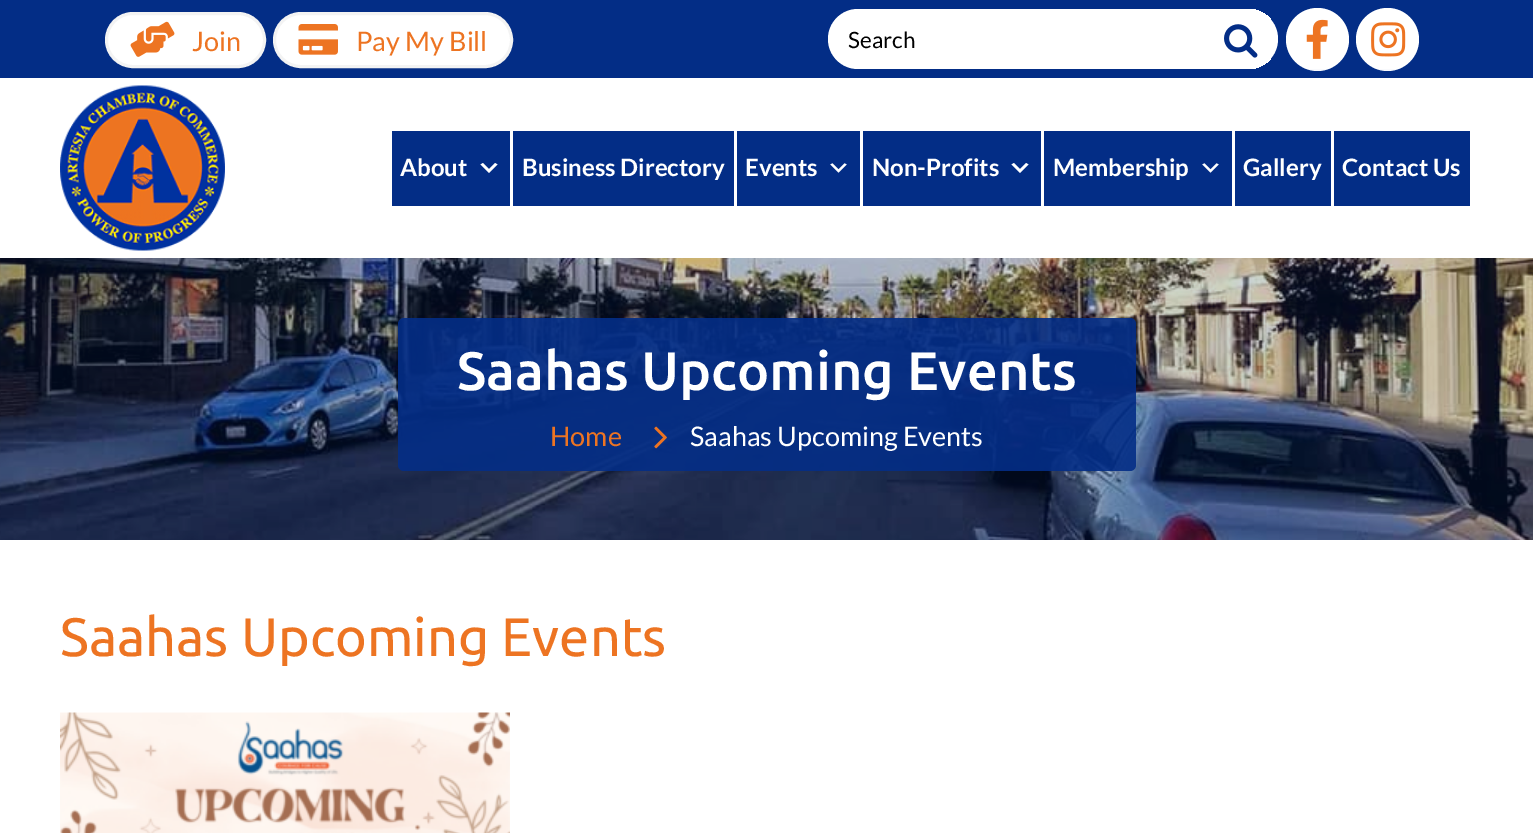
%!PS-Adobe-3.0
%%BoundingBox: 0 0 1533 833
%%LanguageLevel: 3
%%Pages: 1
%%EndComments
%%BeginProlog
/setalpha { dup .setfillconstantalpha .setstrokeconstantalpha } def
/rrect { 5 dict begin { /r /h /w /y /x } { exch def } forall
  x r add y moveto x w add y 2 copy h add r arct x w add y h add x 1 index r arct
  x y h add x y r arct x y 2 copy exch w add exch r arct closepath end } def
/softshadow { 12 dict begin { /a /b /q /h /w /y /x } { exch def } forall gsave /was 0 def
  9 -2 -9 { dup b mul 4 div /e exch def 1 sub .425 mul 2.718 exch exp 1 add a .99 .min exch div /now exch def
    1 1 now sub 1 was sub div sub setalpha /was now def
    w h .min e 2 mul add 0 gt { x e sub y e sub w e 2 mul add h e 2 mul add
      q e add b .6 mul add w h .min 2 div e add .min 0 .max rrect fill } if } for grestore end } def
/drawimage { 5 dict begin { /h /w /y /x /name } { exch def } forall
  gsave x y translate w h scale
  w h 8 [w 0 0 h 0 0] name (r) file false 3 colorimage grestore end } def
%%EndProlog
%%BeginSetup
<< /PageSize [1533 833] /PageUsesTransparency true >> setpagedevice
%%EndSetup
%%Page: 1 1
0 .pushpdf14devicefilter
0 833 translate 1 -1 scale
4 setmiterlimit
1 setgray
0 0 1533 833 rectfill
0.012 0.176 0.525 setrgbcolor
0 0 1533 78 rectfill
1 setgray
106.5 13.5 158 53 26.5 rrect gsave fill grestore
0.953 setgray
3 setlinewidth
stroke
(images/1.raw) 130 21 45 36 drawimage
1 setgray
274.5 13.5 237 53 26.5 rrect gsave fill grestore
0.953 setgray
stroke
(images/2.raw) 298 24 40 31 drawimage
1 setgray
newpath 1317.5 39.5 31.5 0 360 arc closepath fill
(images/4.raw) 1306 19 22 40 drawimage
newpath 1387.5 39.5 31.5 0 360 arc closepath fill
(images/5.raw) 1371 22 35 35 drawimage
gsave
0 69 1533 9 rectclip
0.012 0.176 0.525 setrgbcolor
0 78 1533 180 0 7.5 0.18 softshadow
grestore
828 9 450 60 30 rrect fill
gsave
828 9 450 60 30 rrect clip newpath
1211 9 60 60 rectfill
grestore
(images/3.raw) 1224 24 34 34 drawimage
(images/6.raw) 60 85 165 166 drawimage
0.012 0.176 0.525 setrgbcolor
392 131 118 75 rectfill
1 setgray
newpath 483 163 moveto 489 169 lineto 495 163 lineto 497.5 164.5 lineto 489 173 lineto 480.5 164.5 lineto closepath fill
0.012 0.176 0.525 setrgbcolor
513 131 221 75 rectfill
737 131 123 75 rectfill
(images/7.raw) 830 163 17 10 drawimage
863 131 178 75 rectfill
1 setgray
newpath 1014 163 moveto 1020 169 lineto 1026 163 lineto 1028.5 164.5 lineto 1020 173 lineto 1011.5 164.5 lineto closepath fill
0.012 0.176 0.525 setrgbcolor
1044 131 188 75 rectfill
(images/7.raw) 1202 163 17 10 drawimage
1235 131 96 75 rectfill
1334 131 136 75 rectfill
(images/8.raw) 0 258 1533 282 drawimage
0.9 setalpha
398 318 738 153 6 rrect fill
1 setalpha
(images/9.raw) 654 426 13 23 drawimage
(images/10.raw) 60 712 450 121 drawimage
/Lato-Regular [27 0 0 -27 0 0] selectfont
0.929 0.455 0.133 setrgbcolor
192 51 moveto (Join) show
356 51 moveto (Pay My Bill) show
/Lato-Regular [22.5 0 0 -22.5 0 0] selectfont
0 setgray
848 48 moveto (Search) show
/Lato-Bold [24 0 0 -24 0 0] selectfont
1 setgray
400 176 moveto (About) show
522 176 moveto (Business Directory) show
745 176 moveto (Events) show
872 176 moveto (Non-Profits) show
1053 176 moveto (Membership) show
1243 176 moveto (Gallery) show
1342 176 moveto (Contact Us) show
/Ubuntu-Medium [54 0 0 -54 0 0] selectfont
457 390 moveto (Saahas Upcoming Events) show
/Lato-Regular [27 0 0 -27 0 0] selectfont
0.929 0.455 0.133 setrgbcolor
550 446 moveto (Home) show
1 setgray
690 446 moveto (Saahas Upcoming Events) show
/Ubuntu-Regular [54 0 0 -54 0 0] selectfont
0.929 0.455 0.133 setrgbcolor
60 656 moveto (Saahas Upcoming Events) show
.poppdf14devicefilter showpage
%%EOF
